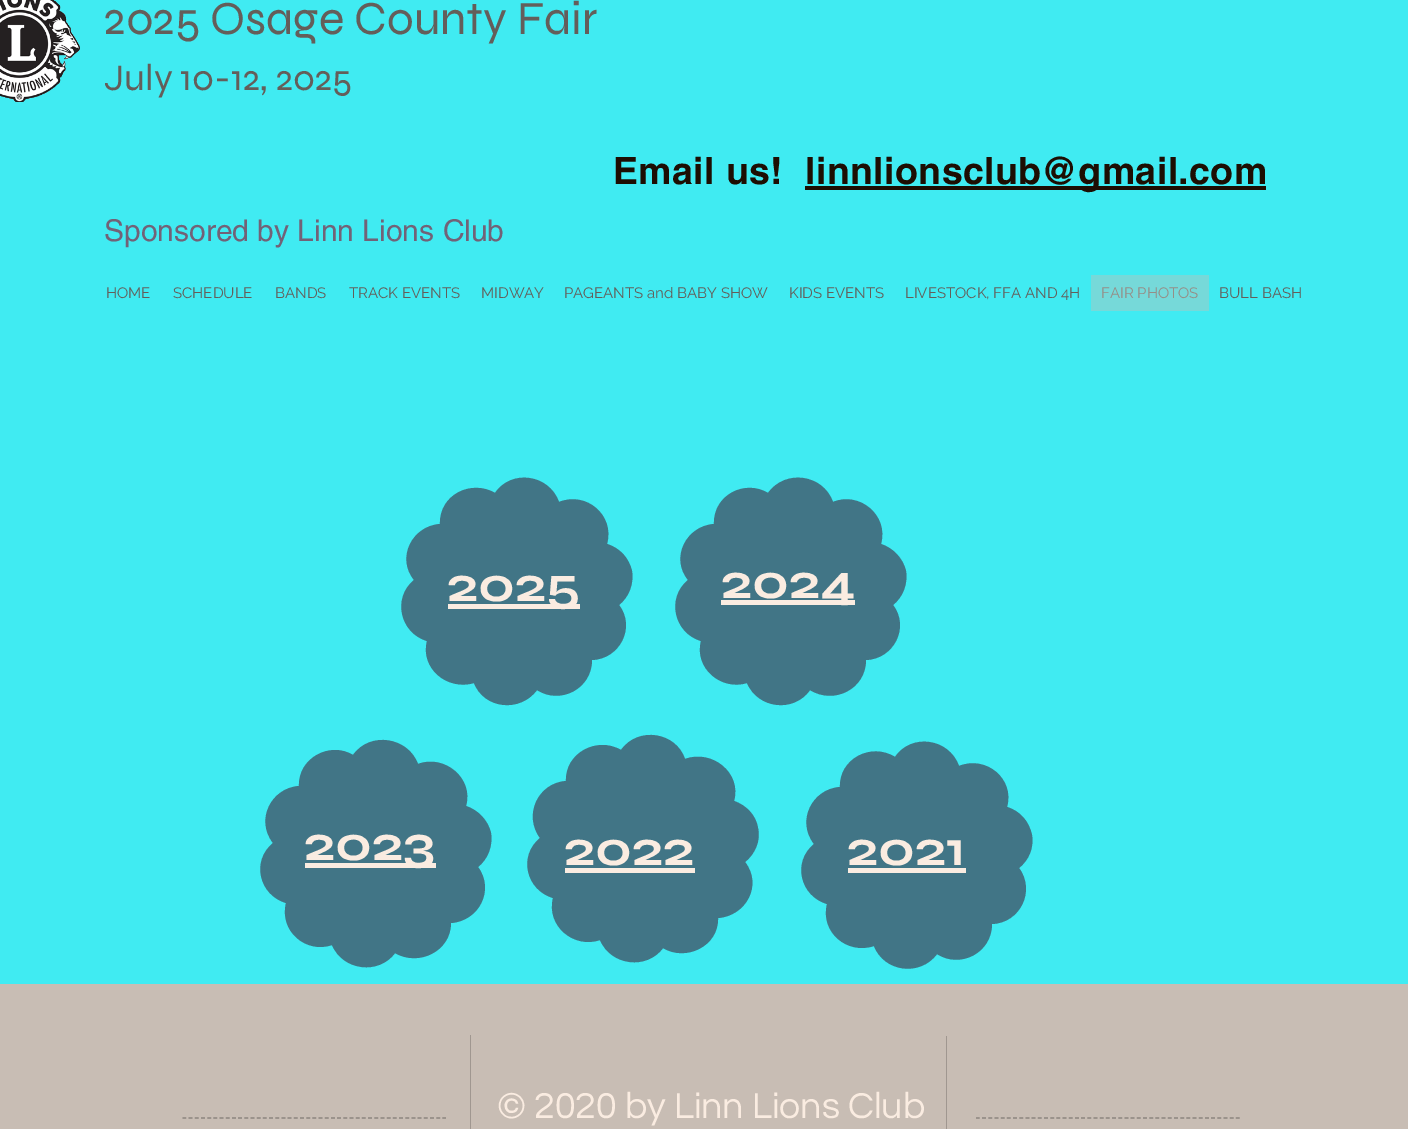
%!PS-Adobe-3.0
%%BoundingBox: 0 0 1408 1129
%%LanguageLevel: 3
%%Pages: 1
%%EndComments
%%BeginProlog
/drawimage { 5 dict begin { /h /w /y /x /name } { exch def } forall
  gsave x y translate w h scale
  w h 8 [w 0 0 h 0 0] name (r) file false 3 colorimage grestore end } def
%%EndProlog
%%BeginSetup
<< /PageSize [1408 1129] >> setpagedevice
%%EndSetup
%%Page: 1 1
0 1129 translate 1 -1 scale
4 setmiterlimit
0.251 0.922 0.949 setrgbcolor
0 0 1408 1129 rectfill
(images/1.raw) 0 0 80 102 drawimage
0.114 0.055 0.012 setrgbcolor
805 186 461 4 rectfill
0.463 0.851 0.851 setrgbcolor
1091 275 118 36 rectfill
0.255 0.459 0.525 setrgbcolor
newpath 632 571 moveto 629 558 620 548 607 544 curveto 615 515 586 491 559 502 curveto 549 474 511 469 495 493 curveto 471 479 439 495 440 524 curveto 412 526 396 558 414 580 curveto 392 598 400 633 427 641 curveto 420 668 447 691 474 683 curveto 484 709 520 713 537 690 curveto 560 705 592 689 592 660 curveto 620 659 636 627 619 605 curveto 629 597 634 584 632 571 curveto eofill
newpath 906 571 moveto 903 558 893 548 881 544 curveto 889 515 859 491 833 502 curveto 823 474 785 469 768 493 curveto 745 479 713 495 714 524 curveto 686 526 670 558 688 580 curveto 666 598 674 633 701 641 curveto 694 668 721 691 747 683 curveto 758 709 794 713 810 690 curveto 834 705 866 689 866 660 curveto 894 659 910 627 893 605 curveto 903 597 908 584 906 571 curveto eofill
0.98 0.925 0.882 setrgbcolor
448 604 132 5 rectfill
721 600 134 5 rectfill
0.255 0.459 0.525 setrgbcolor
newpath 491 833 moveto 488 820 478 810 466 806 curveto 474 778 444 754 418 764 curveto 408 737 370 731 353 755 curveto 330 741 298 758 299 786 curveto 271 788 255 820 273 843 curveto 251 861 259 895 286 903 curveto 279 931 306 954 332 945 curveto 343 971 379 975 395 953 curveto 419 967 451 951 451 923 curveto 479 921 495 890 478 867 curveto 488 859 493 846 491 833 curveto eofill
0.98 0.925 0.882 setrgbcolor
305 863 131 5 rectfill
0.255 0.459 0.525 setrgbcolor
newpath 758 828 moveto 756 815 746 805 734 801 curveto 742 773 712 749 685 759 curveto 676 732 638 726 621 750 curveto 597 736 565 753 566 781 curveto 538 783 523 815 540 838 curveto 518 856 526 890 553 898 curveto 546 926 574 949 600 940 curveto 611 966 647 970 663 948 curveto 686 962 719 946 718 918 curveto 746 916 763 885 745 862 curveto 755 854 761 841 758 828 curveto eofill
0.98 0.925 0.882 setrgbcolor
565 868 130 5 rectfill
0.255 0.459 0.525 setrgbcolor
newpath 1032 835 moveto 1029 821 1020 811 1007 807 curveto 1015 779 986 755 959 766 curveto 949 738 911 733 895 757 curveto 871 742 839 759 840 787 curveto 812 789 796 821 814 844 curveto 792 862 800 896 827 904 curveto 820 932 847 955 874 946 curveto 884 972 920 977 937 954 curveto 960 969 992 953 992 924 curveto 1020 923 1036 891 1019 868 curveto 1029 860 1034 848 1032 835 curveto eofill
0.98 0.925 0.882 setrgbcolor
848 868 118 5 rectfill
0.784 0.741 0.706 setrgbcolor
0 984 1408 145 rectfill
0.549 0.518 0.494 setrgbcolor
1.2 setlinewidth
[3.75 2.44] 0 setdash
newpath 182.5 1118 moveto 446 1118 lineto stroke
0.627 0.592 0.565 setrgbcolor
470 1035 1 94 rectfill
946 1036 1 93 rectfill
0.549 0.518 0.494 setrgbcolor
newpath 976 1118 moveto 1240 1118 lineto stroke
/Syne-Regular [47.5 0 0 -47.5 0 0] selectfont
0.392 0.369 0.353 setrgbcolor
104 34 moveto (2025 Osage County Fair) show
/Syne-Regular [37.5 0 0 -37.5 0 0] selectfont
104 90 moveto (July 10-12, 2025) show
/helvetica-Bold [37.5 0 0 -37.5 0 0] selectfont
0.114 0.055 0.012 setrgbcolor
613 184 moveto 0.4 0 (Email us!) ashow
805 184 moveto 0.4 0 (linnlionsclub@gmail.com) ashow
/helvetica-Regular [30 0 0 -30 0 0] selectfont
0.447 0.384 0.467 setrgbcolor
104 241 moveto (Sponsored by Linn Lions Club) show
/Raleway-Regular [15 0 0 -15 0 0] selectfont
0.392 0.369 0.353 setrgbcolor
106 298 moveto (HOME) show
173 298 moveto (SCHEDULE) show
275 298 moveto (BANDS) show
349 298 moveto (TRACK EVENTS) show
481 298 moveto (MIDWAY) show
564 298 moveto (PAGEANTS and BABY SHOW) show
789 298 moveto (KIDS EVENTS) show
905 298 moveto (LIVESTOCK, FFA AND 4H) show
0.588 0.557 0.529 setrgbcolor
1101 298 moveto (FAIR PHOTOS) show
0.392 0.369 0.353 setrgbcolor
1219 298 moveto (BULL BASH) show
/Syne-Bold [50 0 0 -50 0 0] selectfont
0.98 0.925 0.882 setrgbcolor
447 601 moveto (2025) show
721 598 moveto (2024) show
304 860 moveto (2023) show
564 865 moveto (2022) show
847 865 moveto (2021) show
/Questrial-Regular [37.5 0 0 -37.5 0 0] selectfont
497 1118 moveto (© 2020 by Linn Lions Club) show
showpage
%%EOF
